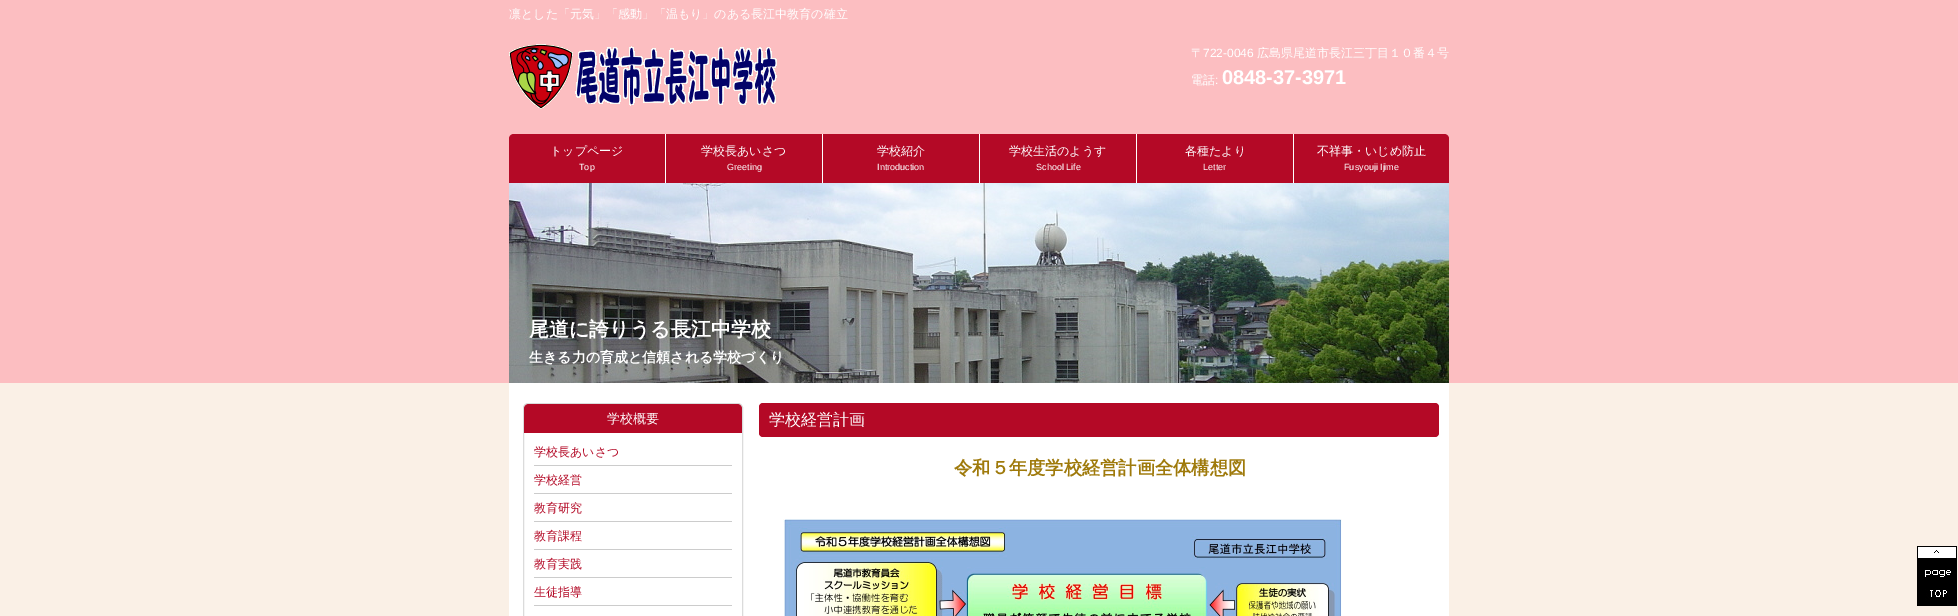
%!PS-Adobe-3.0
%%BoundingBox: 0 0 1958 616
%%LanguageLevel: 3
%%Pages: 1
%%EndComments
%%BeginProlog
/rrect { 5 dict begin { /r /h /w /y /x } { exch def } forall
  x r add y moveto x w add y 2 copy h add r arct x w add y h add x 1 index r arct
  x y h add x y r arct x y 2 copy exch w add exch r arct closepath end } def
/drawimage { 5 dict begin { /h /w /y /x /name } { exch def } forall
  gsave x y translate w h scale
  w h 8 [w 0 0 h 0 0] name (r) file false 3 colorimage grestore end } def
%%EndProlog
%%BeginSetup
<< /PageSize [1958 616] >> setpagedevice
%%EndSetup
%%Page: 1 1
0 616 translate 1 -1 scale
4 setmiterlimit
0.98 0.941 0.902 setrgbcolor
0 0 1958 616 rectfill
0.988 0.745 0.757 setrgbcolor
0 0 1958 383 rectfill
(images/1.raw) 509 44 268 65 drawimage
0.706 0.035 0.149 setrgbcolor
newpath 514 134 moveto 1444 134 lineto 1447 134 1449 136 1449 139 curveto 1449 183 lineto 509 183 lineto 509 139 lineto 509 136 511 134 514 134 curveto closepath fill
1 setgray
665 134 1 49 rectfill
822 134 1 49 rectfill
979 134 1 49 rectfill
1136 134 1 49 rectfill
1293 134 1 49 rectfill
(images/2.raw) 509 183 940 200 drawimage
509 383 940 233 rectfill
0.859 setgray
newpath 528 403.5 moveto 738 403.5 lineto 740.5 403.5 742.5 405.5 742.5 408 curveto 742.5 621.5 lineto 523.5 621.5 lineto 523.5 408 lineto 523.5 405.5 525.5 403.5 528 403.5 curveto closepath stroke
0.706 0.035 0.149 setrgbcolor
newpath 529 404 moveto 737 404 lineto 740 404 742 406 742 409 curveto 742 433 lineto 524 433 lineto 524 409 lineto 524 406 526 404 529 404 curveto closepath fill
0.8 setgray
534 465 198 1 rectfill
534 493 198 1 rectfill
534 521 198 1 rectfill
534 549 198 1 rectfill
534 577 198 1 rectfill
534 605 198 1 rectfill
0.706 0.035 0.149 setrgbcolor
759 403 680 34 4 rrect fill
(images/3.raw) 783 519 559 97 drawimage
(images/4.raw) 1917 546 40 60 drawimage
/WenQuanYiZenHei-Medium [12 0 0 -12 0 0] selectfont
1 setgray
509 18 moveto (凛とした「元気」「感動」「温もり」のある長江中教育の確立) show
1191 57 moveto (〒) show
/LiberationSans-Regular [12 0 0 -12 0 0] selectfont
1203 57 moveto (722-0046) show
/WenQuanYiZenHei-Medium [12 0 0 -12 0 0] selectfont
1257 57 moveto (広島県尾道市長江三丁目１０番４号) show
1191 84 moveto (電話) show
/LiberationSans-Regular [12 0 0 -12 0 0] selectfont
1215 84 moveto (:) show
/LiberationSans-Bold [20 0 0 -20 0 0] selectfont
1222 84 moveto (0848-37-3971) show
/WenQuanYiZenHei-Medium [12 0 0 -12 0 0] selectfont
550 155 moveto (トップページ) show
/LiberationSans-Regular [9 0 0 -9 0 0] selectfont
579 170 moveto (Top) show
/WenQuanYiZenHei-Medium [12 0 0 -12 0 0] selectfont
701 155 moveto (学校長あいさつ) show
/LiberationSans-Regular [9 0 0 -9 0 0] selectfont
727 170 moveto (Greeting) show
/WenQuanYiZenHei-Medium [12 0 0 -12 0 0] selectfont
877 155 moveto (学校紹介) show
/LiberationSans-Regular [9 0 0 -9 0 0] selectfont
877 170 moveto (Introduction) show
/WenQuanYiZenHei-Medium [12 0 0 -12 0 0] selectfont
1009 155 moveto (学校生活のようす) show
/LiberationSans-Regular [9 0 0 -9 0 0] selectfont
1036 170 moveto (School Life) show
/WenQuanYiZenHei-Medium [12 0 0 -12 0 0] selectfont
1185 155 moveto (各種たより) show
/LiberationSans-Regular [9 0 0 -9 0 0] selectfont
1203 170 moveto (Letter) show
/WenQuanYiZenHei-Medium [12 0 0 -12 0 0] selectfont
1317 155 moveto (不祥事・いじめ防止) show
/LiberationSans-Regular [9 0 0 -9 0 0] selectfont
1344 170 moveto (Fusyouji Ijime) show
/WenQuanYiZenHei-Bold [20 0 0 -20 0 0] selectfont
529 336 moveto (尾道に誇りうる長江中学校) show
/WenQuanYiZenHei-Bold [14 0 0 -14 0 0] selectfont
529 362 moveto (生きる力の育成と信頼される学校づくり) show
/WenQuanYiZenHei-Medium [13 0 0 -13 0 0] selectfont
607 423 moveto (学校概要) show
/WenQuanYiZenHei-Medium [12 0 0 -12 0 0] selectfont
0.706 0.035 0.149 setrgbcolor
534 456 moveto (学校長あいさつ) show
534 484 moveto (学校経営) show
534 512 moveto (教育研究) show
534 540 moveto (教育課程) show
534 568 moveto (教育実践) show
534 596 moveto (生徒指導) show
/WenQuanYiZenHei-Medium [16 0 0 -16 0 0] selectfont
1 setgray
769 425 moveto (学校経営計画) show
/WenQuanYiZenHei-Bold [18.25 0 0 -18.25 0 0] selectfont
0.624 0.478 0.043 setrgbcolor
954 474 moveto (令和５年度学校経営計画全体構想図) show
showpage
%%EOF
